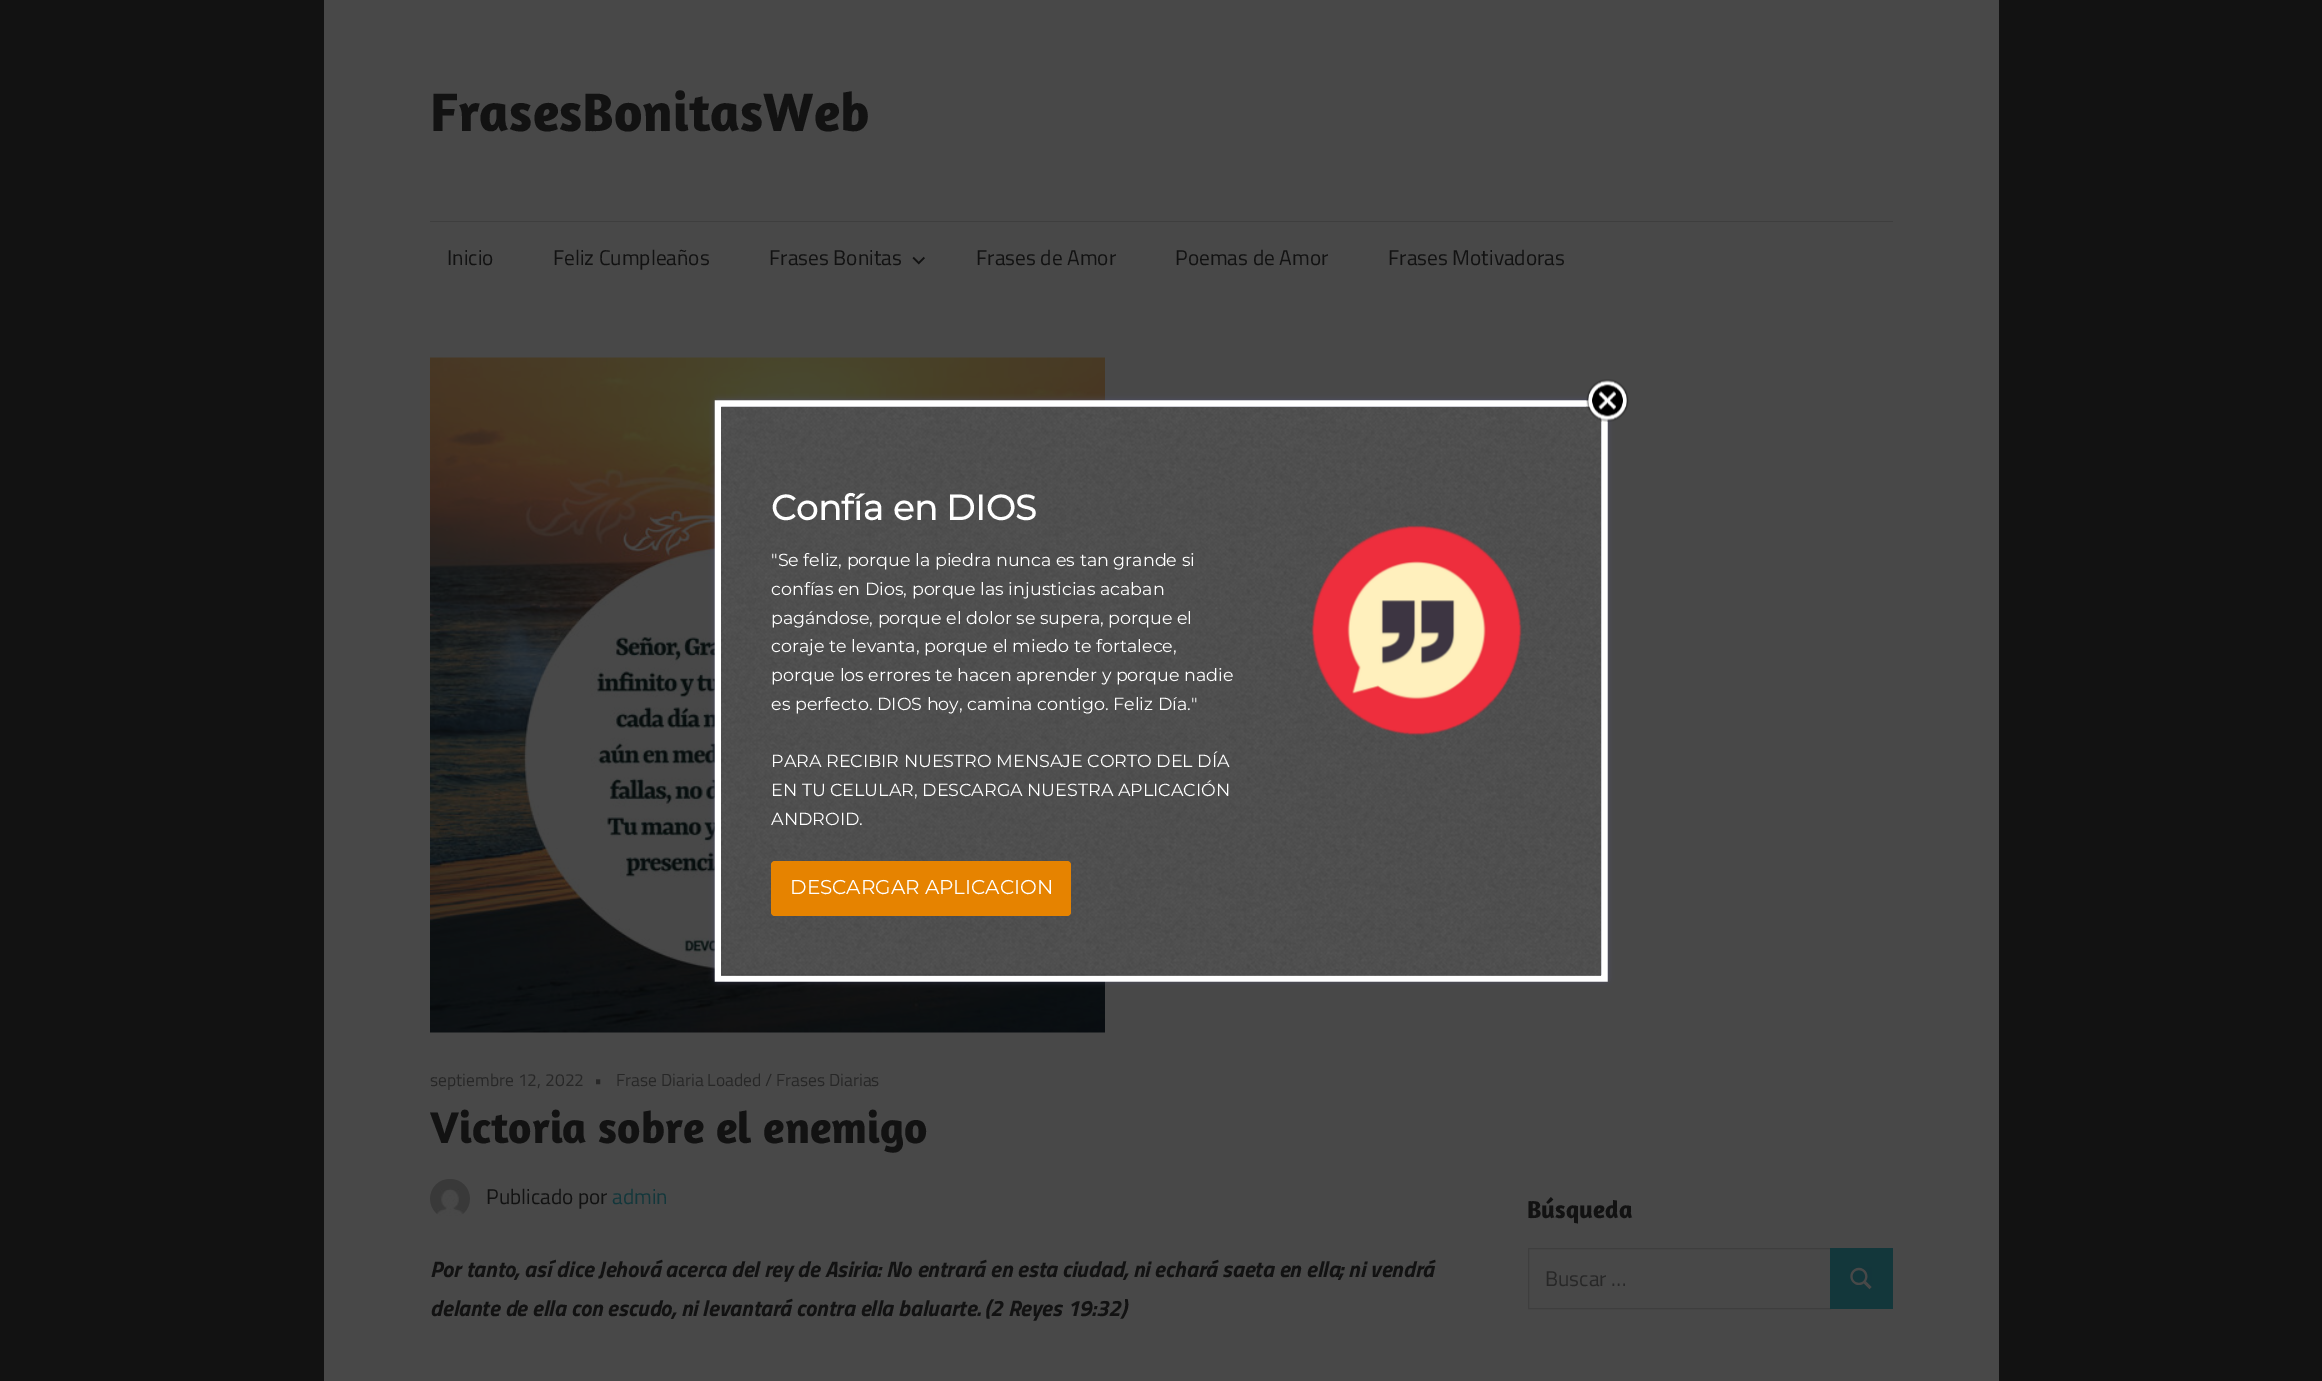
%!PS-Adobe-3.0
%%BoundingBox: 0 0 2322 1381
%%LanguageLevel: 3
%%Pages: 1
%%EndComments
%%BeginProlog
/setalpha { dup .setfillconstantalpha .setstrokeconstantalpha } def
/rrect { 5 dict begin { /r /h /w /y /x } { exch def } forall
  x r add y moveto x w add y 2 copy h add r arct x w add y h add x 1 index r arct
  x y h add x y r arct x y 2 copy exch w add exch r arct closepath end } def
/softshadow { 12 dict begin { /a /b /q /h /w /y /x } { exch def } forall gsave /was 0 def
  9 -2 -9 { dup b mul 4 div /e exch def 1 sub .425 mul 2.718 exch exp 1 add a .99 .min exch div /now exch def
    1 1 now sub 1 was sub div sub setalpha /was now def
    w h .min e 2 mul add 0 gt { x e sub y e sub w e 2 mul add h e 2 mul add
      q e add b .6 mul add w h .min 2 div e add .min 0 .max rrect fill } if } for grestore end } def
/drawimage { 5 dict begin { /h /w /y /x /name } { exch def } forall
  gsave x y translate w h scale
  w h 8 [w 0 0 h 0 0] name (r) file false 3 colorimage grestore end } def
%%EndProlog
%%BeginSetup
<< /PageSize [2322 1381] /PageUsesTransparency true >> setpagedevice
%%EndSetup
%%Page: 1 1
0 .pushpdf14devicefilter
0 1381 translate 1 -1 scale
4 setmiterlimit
0.071 setgray
0 0 2322 1381 rectfill
0.282 setgray
324 0 1675 1381 rectfill
0.243 setgray
430 221 1463 1 rectfill
(images/1.raw) 912 256 13 9 drawimage
(images/2.raw) 430 357 675 676 drawimage
(images/3.raw) 430 1179 40 37 drawimage
1528.5 1248.5 302 60 rectstroke
0.075 0.216 0.231 setrgbcolor
1830 1248 63 61 rectfill
(images/4.raw) 1850 1267 22 23 drawimage
0.337 0.337 0.514 setrgbcolor
715 400 893 581 2.5 3 0.6 softshadow
1 setgray
6.2 setlinewidth
newpath 718 403.5 moveto 1604.5 403.5 lineto 1604.5 978.5 lineto 718 978.5 lineto closepath stroke
(images/6.raw) 721 407 880 569 drawimage
(images/5.raw) 1586 379 43 43 drawimage
0.902 0.514 0 setrgbcolor
771 861 300 55 4 rrect fill
(images/7.raw) 1311 525 211 211 drawimage
/Amaranth-Bold [55 0 0 -55 0 0] selectfont
0.071 setgray
430 131 moveto (FrasesBonitasWeb) show
/TitilliumWeb-Regular [21.25 0 0 -21.25 0 0] selectfont
447 265 moveto (Inicio) show
553 265 moveto (Feliz Cumpleaños) show
769 265 moveto (Frases Bonitas) show
976 265 moveto (Frases de Amor) show
1175 265 moveto (Poemas de Amor) show
1388 265 moveto (Frases Motivadoras) show
/TitilliumWeb-Regular [17.5 0 0 -17.5 0 0] selectfont
0.153 setgray
430 1086 moveto (septiembre 12, 2022) show
594 1086 moveto (•) show
616 1086 moveto (Frase Diaria Loaded / Frases Diarias) show
/Amaranth-Bold [45 0 0 -45 0 0] selectfont
0.071 setgray
430 1143 moveto (Victoria sobre el enemigo) show
/TitilliumWeb-Regular [21.25 0 0 -21.25 0 0] selectfont
486 1204 moveto (Publicado por) show
0.075 0.216 0.231 setrgbcolor
612 1204 moveto (admin) show
/TitilliumWeb-BoldItalic [22.5 0 0 -22.5 0 0] selectfont
0.071 setgray
430 1277 moveto (Por tanto, así dice Jehová acerca del rey de Asiria: No entrará en esta ciudad, ni echará saeta en ella; ni vendrá) show
430 1316 moveto (delante de ella con escudo, ni levantará contra ella baluarte. \(2 Reyes 19:32\)) show
/Amaranth-Bold [25 0 0 -25 0 0] selectfont
1527 1218 moveto (Búsqueda) show
/TitilliumWeb-Regular [21.25 0 0 -21.25 0 0] selectfont
0.153 setgray
1545 1286 moveto (Buscar …) show
/Montserrat-Bold [35 0 0 -35 0 0] selectfont
1 setgray
771 520 moveto (Confía en DIOS) show
/Montserrat-Thin [17.5 0 0 -17.5 0 0] selectfont
771 566 moveto ("Se feliz, porque la piedra nunca es tan grande si) show
771 595 moveto (confías en Dios, porque las injusticias acaban) show
771 624 moveto (pagándose, porque el dolor se supera, porque el) show
771 652 moveto (coraje te levanta, porque el miedo te fortalece,) show
771 681 moveto (porque los errores te hacen aprender y porque nadie) show
771 710 moveto (es perfecto. DIOS hoy, camina contigo. Feliz Día.") show
771 767 moveto (PARA RECIBIR NUESTRO MENSAJE CORTO DEL DÍA) show
771 796 moveto (EN TU CELULAR, DESCARGA NUESTRA APLICACIÓN) show
771 825 moveto (ANDROID.) show
/Montserrat-Thin [20 0 0 -20 0 0] selectfont
790 894 moveto (DESCARGAR APLICACION) show
.poppdf14devicefilter showpage
%%EOF
